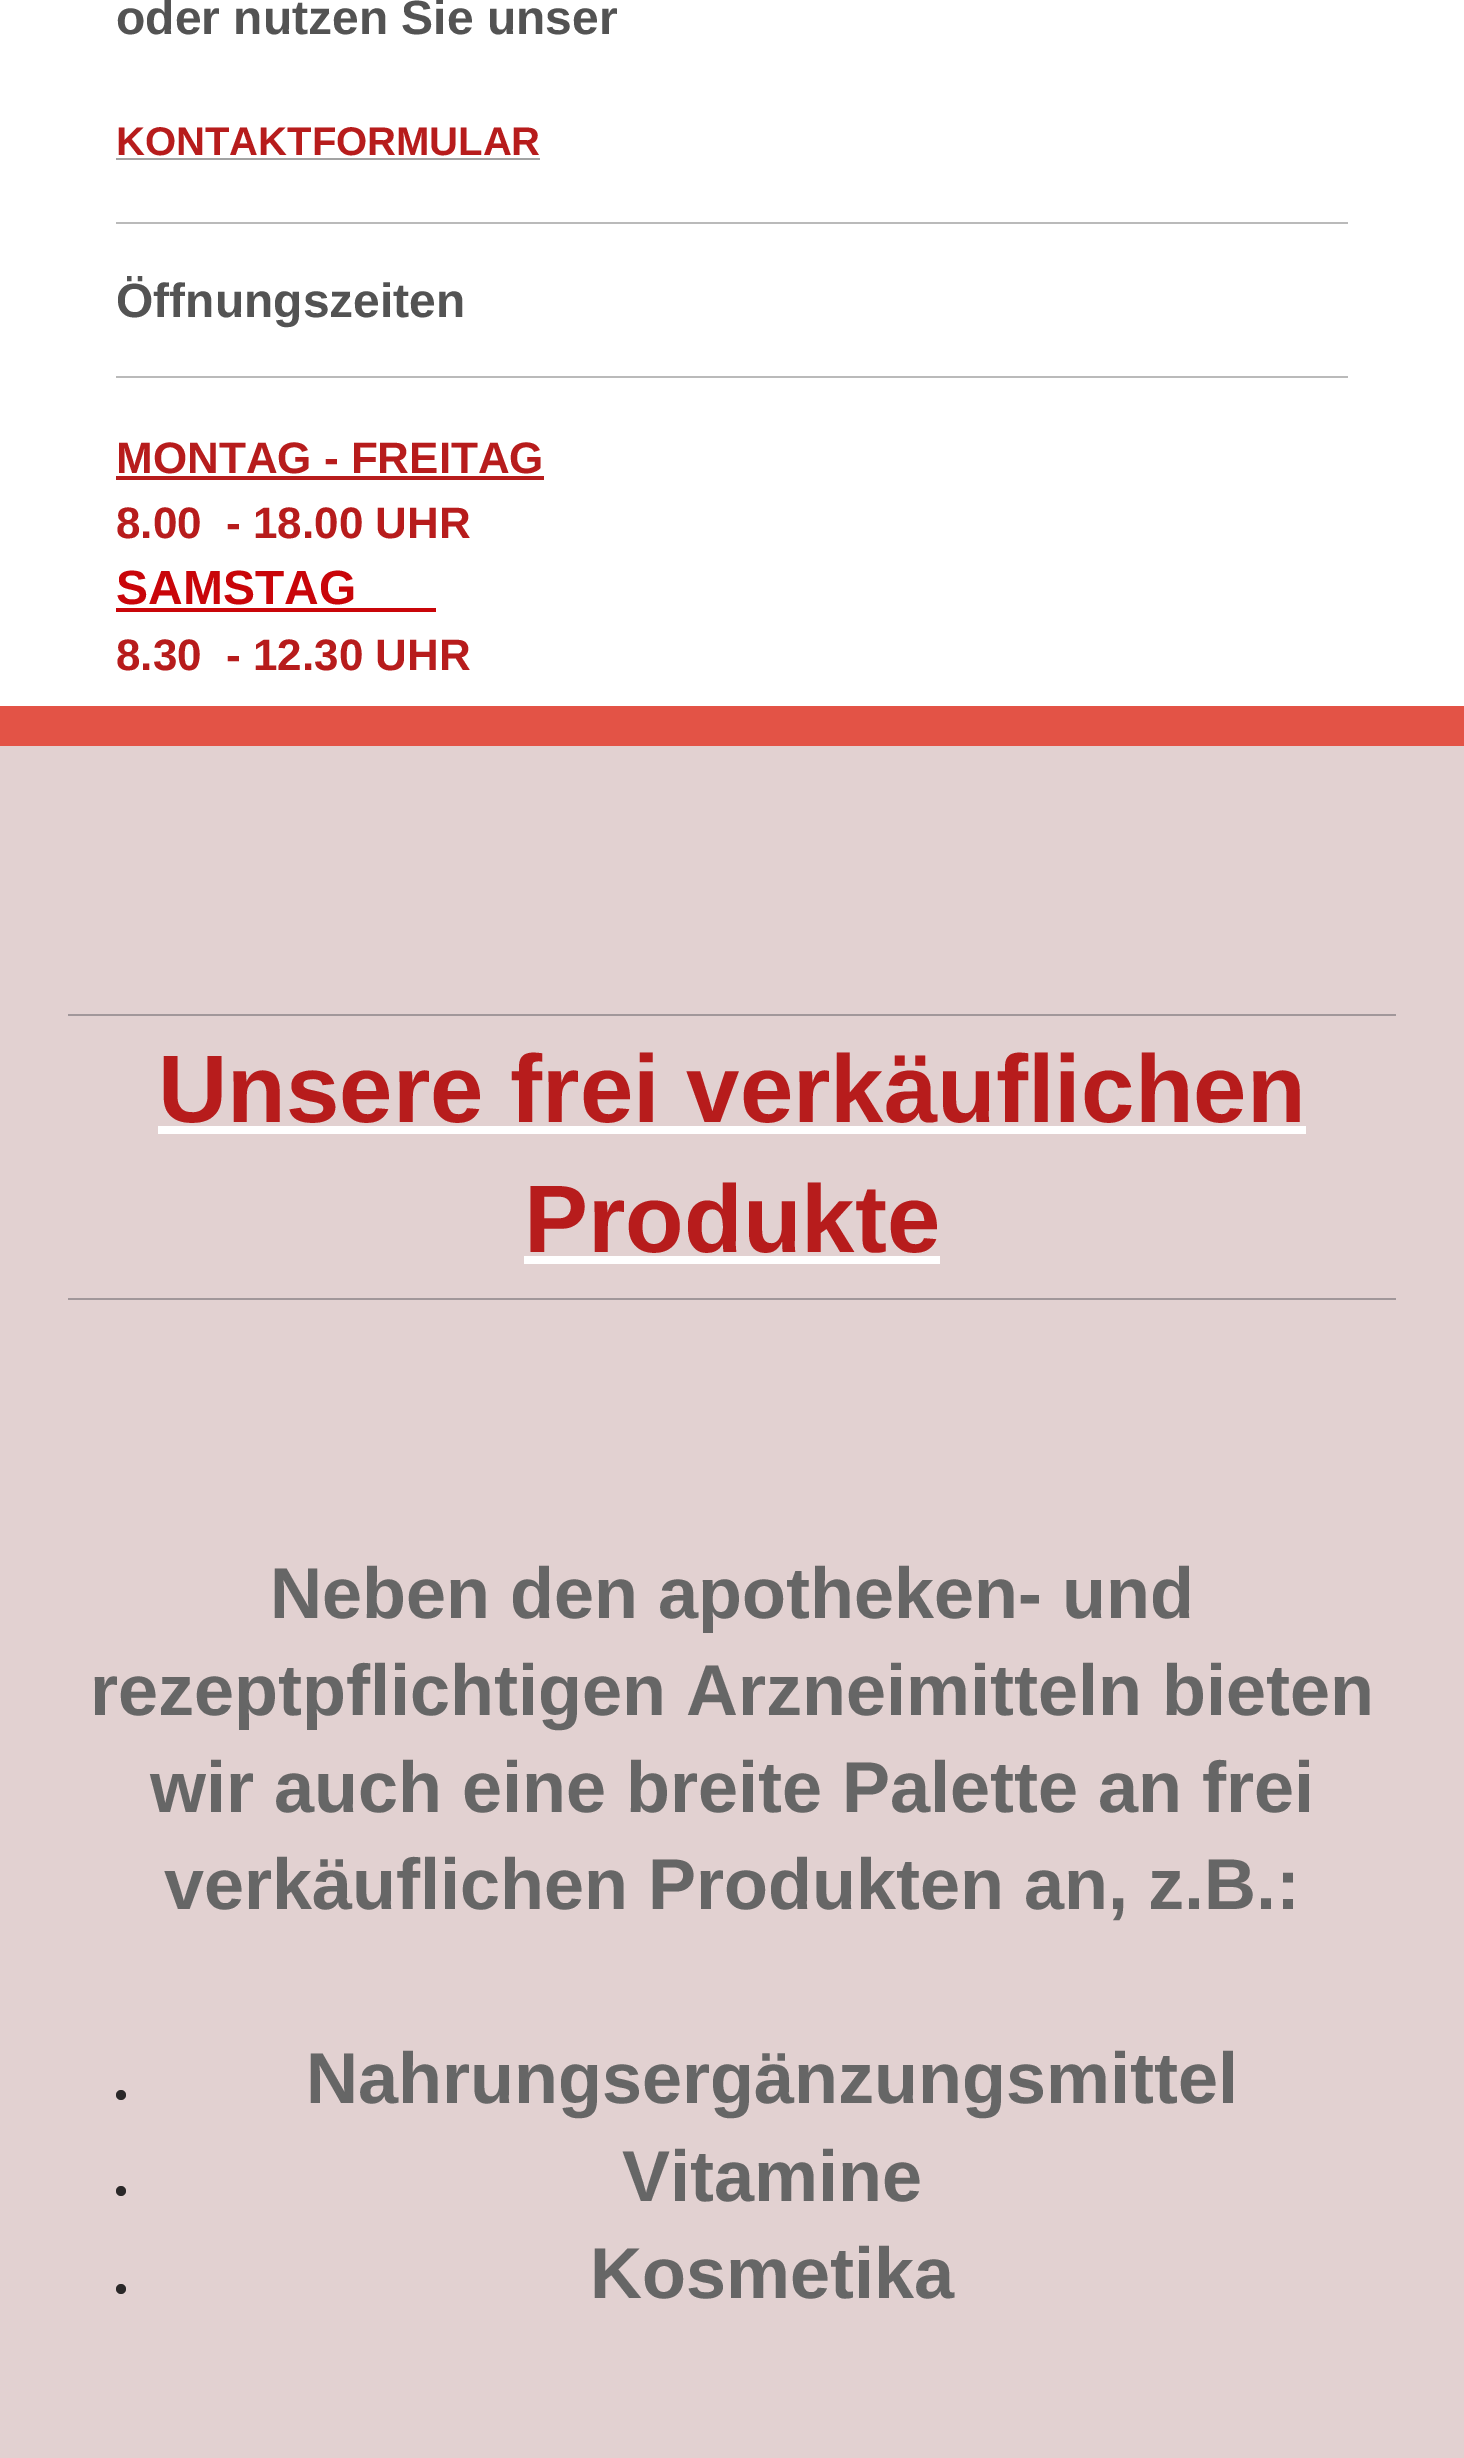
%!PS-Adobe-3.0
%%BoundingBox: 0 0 1464 2458
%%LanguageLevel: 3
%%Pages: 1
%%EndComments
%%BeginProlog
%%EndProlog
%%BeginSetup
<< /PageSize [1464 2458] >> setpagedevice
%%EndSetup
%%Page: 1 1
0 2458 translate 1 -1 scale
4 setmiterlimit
0.89 0.325 0.275 setrgbcolor
0 0 1464 2458 rectfill
1 setgray
0 0 1464 706 rectfill
0.639 setgray
116 158 424 2 rectfill
0.729 setgray
116 222 1232 2 rectfill
116 376 1232 2 rectfill
0.718 0.11 0.11 setrgbcolor
116 476 428 4 rectfill
0.788 0.02 0.035 setrgbcolor
116 608 320 4 rectfill
0.886 0.82 0.82 setrgbcolor
0 746 1464 1712 rectfill
0.631 0.592 0.604 setrgbcolor
68 1014 1328 2 rectfill
1 setgray
158 1126 1148 8 rectfill
524 1256 416 8 rectfill
0.631 0.592 0.604 setrgbcolor
68 1298 1328 2 rectfill
0.165 0.157 0.161 setrgbcolor
newpath 121 2095 5 0 360 arc closepath fill
newpath 121 2191 5 0 360 arc closepath fill
newpath 121 2289 5 0 360 arc closepath fill
/LiberationSans-Bold [48 0 0 -48 0 0] selectfont
0.325 setgray
116 34 moveto (oder nutzen Sie unser) show
/LiberationSans-Bold [40 0 0 -40 0 0] selectfont
0.718 0.11 0.11 setrgbcolor
116 155 moveto (KONTAKTFORMULAR) show
/LiberationSans-Bold [48 0 0 -48 0 0] selectfont
0.325 setgray
116 317 moveto (Öffnungszeiten) show
/LiberationSans-Bold [44 0 0 -44 0 0] selectfont
0.718 0.11 0.11 setrgbcolor
116 473 moveto (MONTAG - FREITAG) show
116 538 moveto (8.00  - 18.00 UHR) show
/LiberationSans-Bold [48 0 0 -48 0 0] selectfont
0.788 0.02 0.035 setrgbcolor
116 604 moveto (SAMSTAG) show
/LiberationSans-Bold [44 0 0 -44 0 0] selectfont
0.718 0.11 0.11 setrgbcolor
116 670 moveto (8.30  - 12.30 UHR) show
/LiberationSans-Bold [96 0 0 -96 0 0] selectfont
158 1122 moveto (Unsere frei verkäuflichen) show
524 1252 moveto (Produkte) show
/LiberationSans-Bold [72 0 0 -72 0 0] selectfont
0.4 setgray
270 1618 moveto (Neben den apotheken- und) show
90 1715 moveto (rezeptpflichtigen Arzneimitteln bieten) show
150 1812 moveto (wir auch eine breite Palette an frei) show
164 1909 moveto (verkäuflichen Produkten an, z.B.:) show
306 2103 moveto (Nahrungsergänzungsmittel) show
622 2201 moveto (Vitamine) show
590 2298 moveto (Kosmetika) show
showpage
%%EOF
